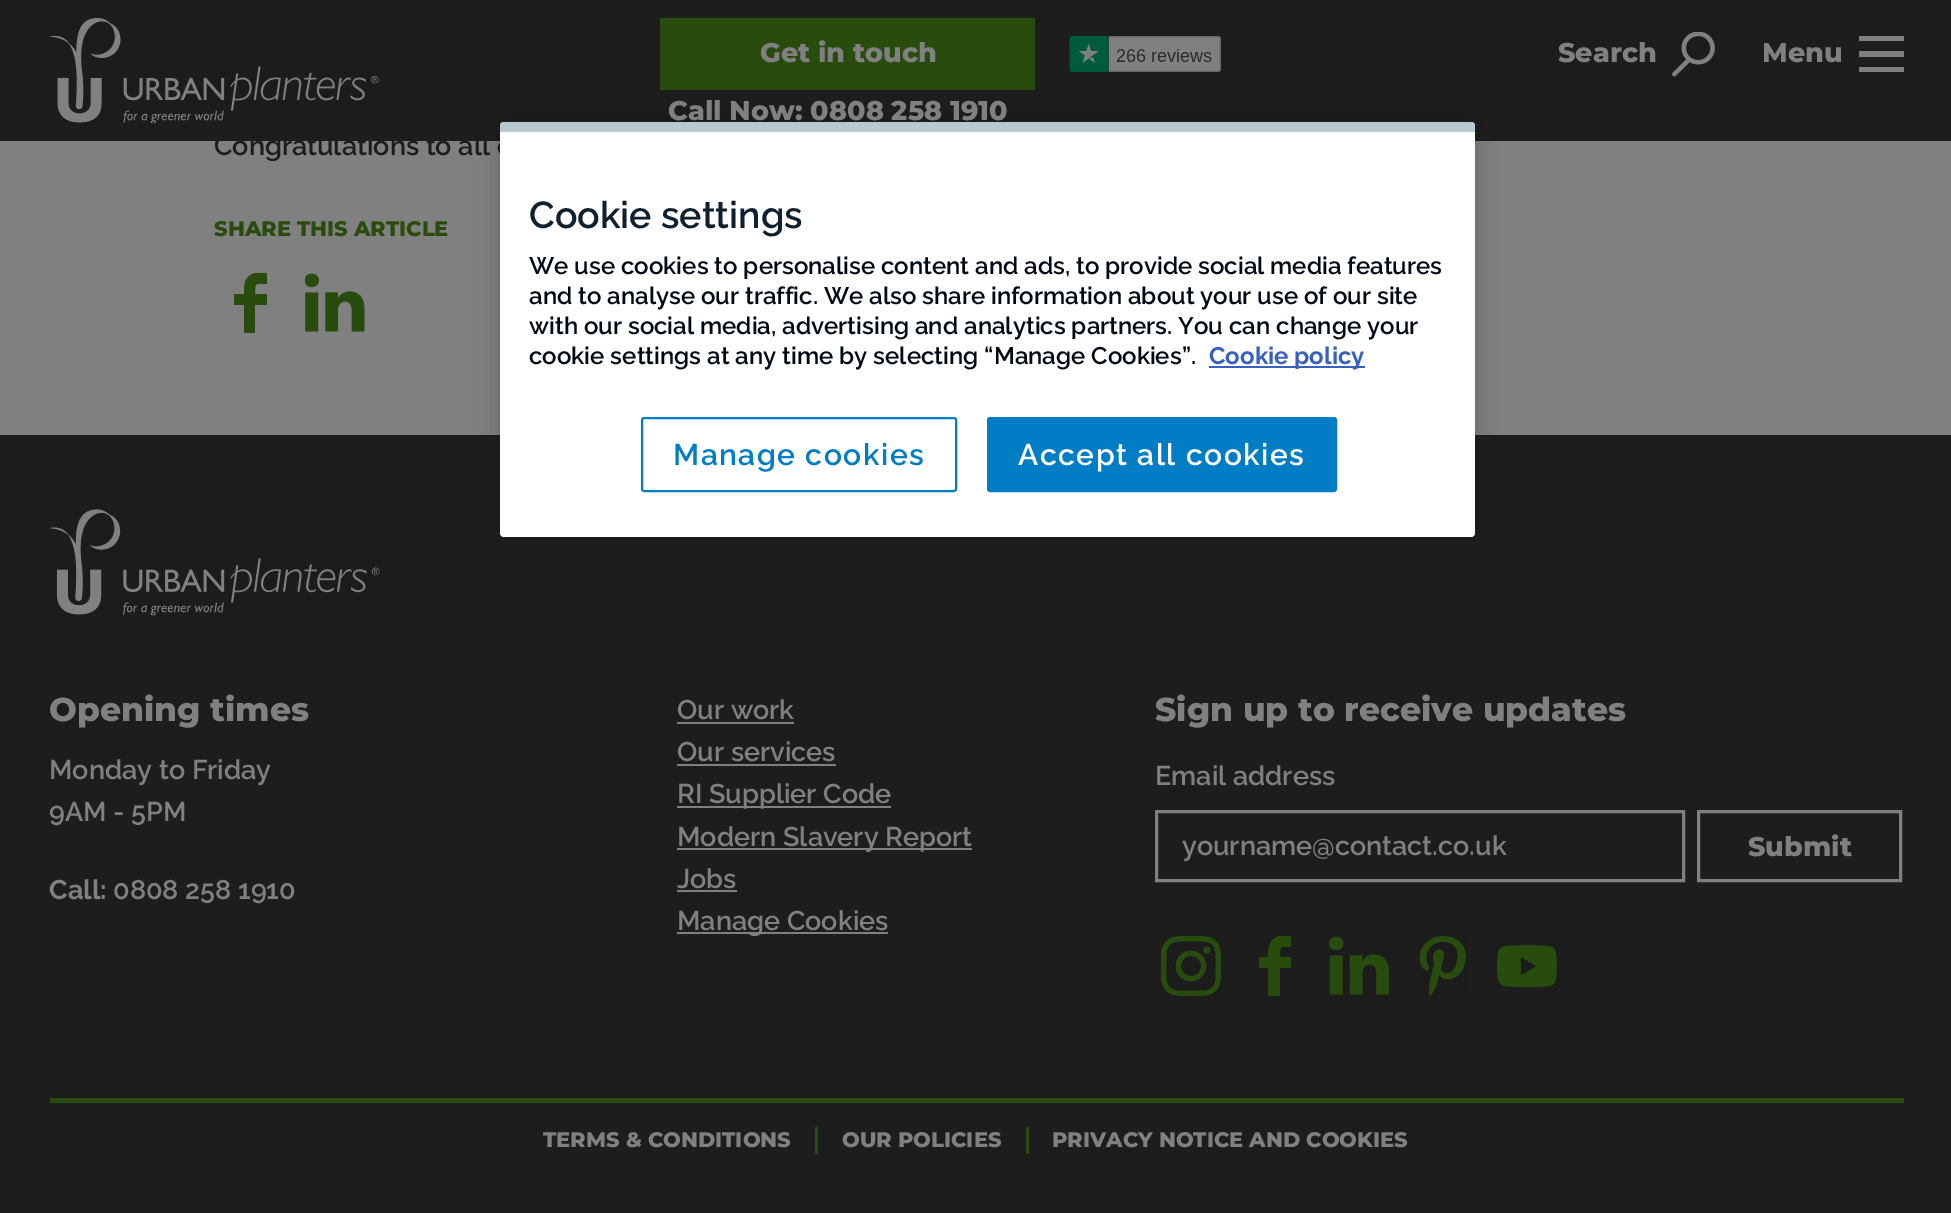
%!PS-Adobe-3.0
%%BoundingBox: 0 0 1951 1213
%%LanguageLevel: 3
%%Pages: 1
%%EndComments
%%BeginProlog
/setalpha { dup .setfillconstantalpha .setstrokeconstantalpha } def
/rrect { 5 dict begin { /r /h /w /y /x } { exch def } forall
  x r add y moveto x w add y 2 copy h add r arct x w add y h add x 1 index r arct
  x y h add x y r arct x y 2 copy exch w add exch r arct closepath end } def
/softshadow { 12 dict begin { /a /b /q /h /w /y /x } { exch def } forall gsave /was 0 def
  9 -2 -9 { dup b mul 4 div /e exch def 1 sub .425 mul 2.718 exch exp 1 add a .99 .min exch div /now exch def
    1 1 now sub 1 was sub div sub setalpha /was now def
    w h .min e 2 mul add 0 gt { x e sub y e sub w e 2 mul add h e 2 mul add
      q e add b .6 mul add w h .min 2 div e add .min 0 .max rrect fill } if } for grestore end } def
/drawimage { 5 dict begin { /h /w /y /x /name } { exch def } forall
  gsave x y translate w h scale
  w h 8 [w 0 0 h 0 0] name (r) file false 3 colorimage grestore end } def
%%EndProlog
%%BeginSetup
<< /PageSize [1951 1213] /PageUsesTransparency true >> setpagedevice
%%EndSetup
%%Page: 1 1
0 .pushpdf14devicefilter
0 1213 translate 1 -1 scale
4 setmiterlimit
0.502 setgray
0 0 1951 1213 rectfill
0.114 setgray
0 0 1951 141 rectfill
(images/1.raw) 50 18 329 105 drawimage
0.161 0.294 0.055 setrgbcolor
660 18 375 72 rectfill
(images/2.raw) 1069 36 152 36 drawimage
(images/3.raw) 1672 32 43 45 drawimage
gsave
1859 32 45 45 rectclip
0.502 setgray
newpath 1858 36 moveto 1904 36 lineto 1904 41 lineto 1858 41 lineto closepath 1858 51 moveto 1904 51 lineto 1904 57 lineto 1858 57 lineto closepath 1858 67 moveto 1904 67 lineto 1904 72 lineto 1858 72 lineto closepath fill
grestore
newpath 267 284 moveto 255 284 255 282 255 294 curveto 267 294 lineto 267 305 lineto 255 305 lineto 255 333 lineto 244 333 lineto 244 305 lineto 234 305 lineto 234 294 lineto 244 294 lineto 244 285 244 276 255 273 curveto 267 273 lineto closepath fill
(images/4.raw) 305 273 60 59 drawimage
0.114 setgray
0 435 1951 778 rectfill
0 setgray
500 122 975 415 4 13.5 0.2 softshadow
(images/5.raw) 50 509 330 107 drawimage
0.502 setgray
677 722 117 2 rectfill
677 764 159 2 rectfill
677 806 214 2 rectfill
677 848 295 2 rectfill
677 890 60 2 rectfill
677 932 211 2 rectfill
3 setlinewidth
1156.5 811.5 527 69 rectstroke
1698.5 811.5 202 69 rectstroke
(images/6.raw) 1161 936 60 60 drawimage
0.161 0.294 0.055 setrgbcolor
newpath 1291 947 moveto 1280 947 1280 945 1280 957 curveto 1291 957 lineto 1291 968 lineto 1280 968 lineto 1280 996 lineto 1268 996 lineto 1268 968 lineto 1259 968 lineto 1259 957 lineto 1268 957 lineto 1268 948 1269 939 1279 936 curveto 1291 936 lineto closepath fill
(images/7.raw) 1329 936 60 59 drawimage
(images/8.raw) 1419 936 47 60 drawimage
(images/9.raw) 1497 945 60 43 drawimage
50 1098 1854 5 rectfill
815 1127 3 27 rectfill
1026 1127 3 27 rectfill
/Montserrat-Thin [27 0 0 -27 0 0] selectfont
0.502 setgray
760 62 moveto (Get in touch) show
668 120 moveto (Call Now: 0808 258 1910) show
1558 62 moveto (Search) show
1762 62 moveto (Menu) show
/Raleway-SemiBold [27 0 0 -27 0 0] selectfont
0.114 setgray
214 155 moveto (Congratulations to all o) show
/Montserrat-Thin [21 0 0 -21 0 0] selectfont
0.161 0.294 0.055 setrgbcolor
214 236 moveto (SHARE THIS ARTICLE) show
1 setgray
500 122 975 415 4 rrect fill
0.725 0.788 0.816 setrgbcolor
newpath 504 122 moveto 1471 122 lineto 1473 122 1475 124 1475 126 curveto 1475 132 lineto 500 132 lineto 500 126 lineto 500 124 502 122 504 122 curveto closepath fill
/Raleway-SemiBold [37.5 0 0 -37.5 0 0] selectfont
0.059 0.125 0.18 setrgbcolor
529 228 moveto (Cookie settings) show
/Raleway-SemiBold [24 0 0 -24 0 0] selectfont
0 0.039 0.082 setrgbcolor
529 274 moveto (We use cookies to personalise content and ads, to provide social media features) show
529 304 moveto (and to analyse our traffic. We also share information about your use of our site) show
529 334 moveto (with our social media, advertising and analytics partners. You can change your) show
529 364 moveto (cookie settings at any time by selecting “Manage Cookies”.) show
0.22 0.376 0.745 setrgbcolor
1209 366 156 2 rectfill
/Raleway-Bold [24 0 0 -24 0 0] selectfont
1209 364 moveto (Cookie policy) show
0 0.49 0.773 setrgbcolor
2 setlinewidth
642 418 314 73 2 rrect stroke
/Raleway-SemiBold [30 0 0 -30 0 0] selectfont
673 465 moveto 1.5 0 (Manage cookies) ashow
988 418 348 73 2 rrect gsave fill grestore
stroke
1 setgray
1018 465 moveto 1.5 0 (Accept all cookies) ashow
/Montserrat-Thin [33 0 0 -33 0 0] selectfont
0.502 setgray
49 721 moveto (Opening times) show
/Raleway-SemiBold [27 0 0 -27 0 0] selectfont
49 779 moveto (Monday to Friday) show
49 821 moveto (9AM - 5PM) show
/Raleway-Bold [27 0 0 -27 0 0] selectfont
49 899 moveto (Call:) show
/Raleway-SemiBold [27 0 0 -27 0 0] selectfont
113 899 moveto (0808 258 1910) show
677 719 moveto (Our work) show
677 761 moveto (Our services) show
677 803 moveto (RI Supplier Code) show
677 846 moveto (Modern Slavery Report) show
677 888 moveto (Jobs) show
677 930 moveto (Manage Cookies) show
/Montserrat-Thin [33 0 0 -33 0 0] selectfont
1155 721 moveto (Sign up to receive updates) show
/Raleway-SemiBold [27 0 0 -27 0 0] selectfont
1155 785 moveto (Email address) show
1182 855 moveto (yourname@contact.co.uk) show
/Montserrat-Thin [27 0 0 -27 0 0] selectfont
1748 856 moveto (Submit) show
/Montserrat-Thin [21 0 0 -21 0 0] selectfont
543 1147 moveto (TERMS & CONDITIONS) show
842 1147 moveto (OUR POLICIES) show
1052 1147 moveto (PRIVACY NOTICE AND COOKIES) show
.poppdf14devicefilter showpage
%%EOF
